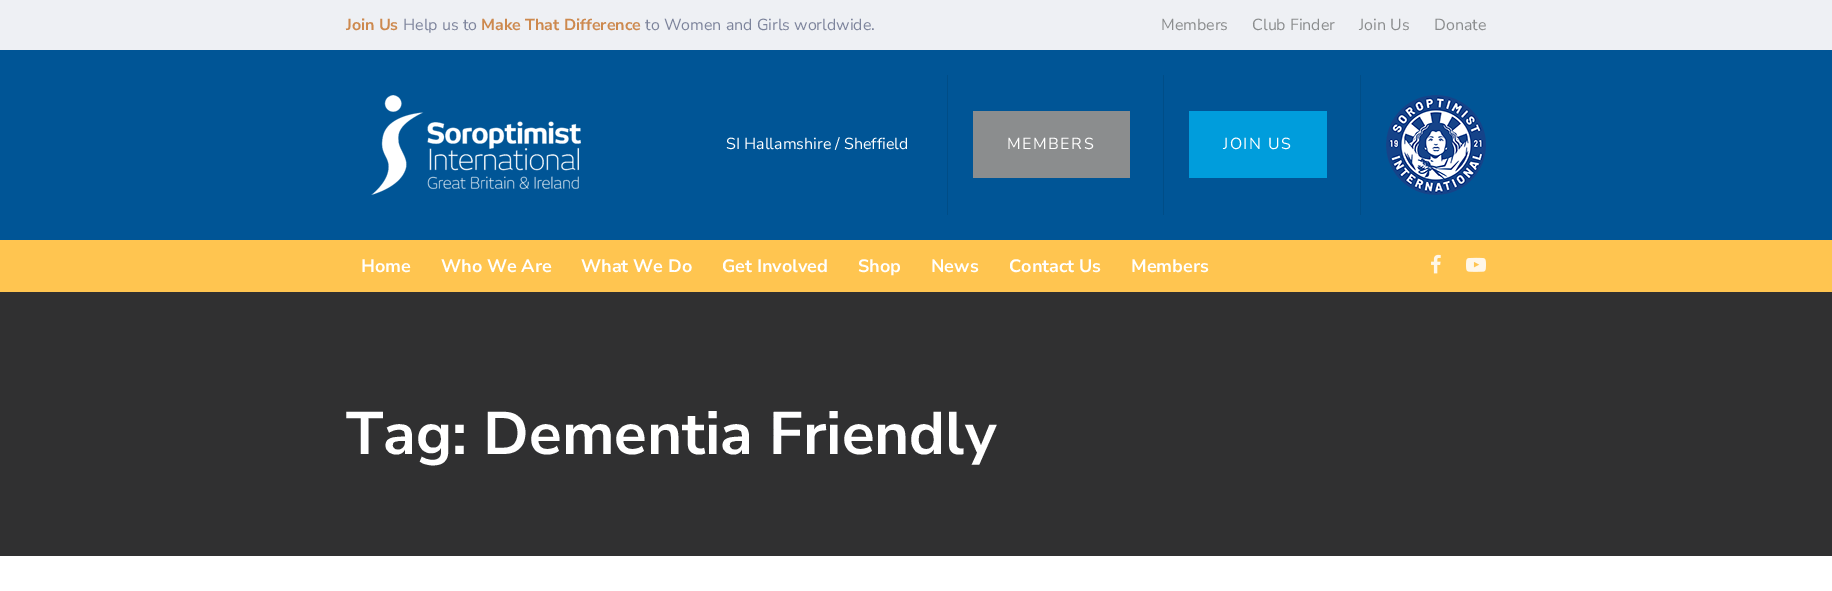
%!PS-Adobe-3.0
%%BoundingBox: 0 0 1832 591
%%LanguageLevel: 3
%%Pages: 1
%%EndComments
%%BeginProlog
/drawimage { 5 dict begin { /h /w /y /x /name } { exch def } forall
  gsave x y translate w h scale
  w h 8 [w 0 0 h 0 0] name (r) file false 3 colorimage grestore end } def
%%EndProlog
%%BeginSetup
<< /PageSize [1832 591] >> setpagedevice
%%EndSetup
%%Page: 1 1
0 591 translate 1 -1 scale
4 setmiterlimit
1 setgray
0 0 1832 591 rectfill
0.933 0.941 0.957 setrgbcolor
0 0 1832 50 rectfill
0 0.333 0.588 setrgbcolor
0 50 1832 190 rectfill
(images/1.raw) 371 95 210 100 drawimage
0 0.302 0.529 setrgbcolor
947 75 1 140 rectfill
0.545 0.553 0.557 setrgbcolor
973 111 157 67 rectfill
0 0.302 0.529 setrgbcolor
1163 75 1 140 rectfill
0 0.616 0.863 setrgbcolor
1189 111 138 67 rectfill
0 0.302 0.529 setrgbcolor
1360 75 1 140 rectfill
(images/2.raw) 1386 95 100 100 drawimage
1 0.773 0.314 setrgbcolor
0 240 1832 52 rectfill
(images/3.raw) 1431 254 10 20 drawimage
(images/4.raw) 1466 257 20 15 drawimage
0.188 0.188 0.192 setrgbcolor
0 292 1832 264 rectfill
/NunitoSans-Bold [16 0 0 -16 0 0] selectfont
0.804 0.537 0.306 setrgbcolor
346 30 moveto (Join Us) show
/NunitoSans-Regular [16 0 0 -16 0 0] selectfont
0.49 0.518 0.612 setrgbcolor
403 30 moveto (Help us to) show
/NunitoSans-Bold [16 0 0 -16 0 0] selectfont
0.804 0.537 0.306 setrgbcolor
481 30 moveto (Make That Difference) show
/NunitoSans-Regular [16 0 0 -16 0 0] selectfont
0.49 0.518 0.612 setrgbcolor
645 30 moveto (to Women and Girls worldwide.) show
0.545 0.553 0.557 setrgbcolor
1161 30 moveto (Members) show
1252 30 moveto (Club Finder) show
1359 30 moveto (Join Us) show
1434 30 moveto (Donate) show
1 setgray
726 149 moveto (SI Hallamshire / Sheffield) show
1007 149 moveto 1.5 0 (MEMBERS) ashow
1223 149 moveto 1.5 0 (JOIN US) ashow
/NunitoSans-Bold [18 0 0 -18 0 0] selectfont
361 272 moveto (Home) show
441 272 moveto (Who We Are) show
581 272 moveto (What We Do) show
722 272 moveto (Get Involved) show
858 272 moveto (Shop) show
931 272 moveto (News) show
1009 272 moveto (Contact Us) show
1131 272 moveto (Members) show
/NunitoSans-Bold [60 0 0 -60 0 0] selectfont
346 454 moveto (Tag: Dementia Friendly) show
showpage
%%EOF
